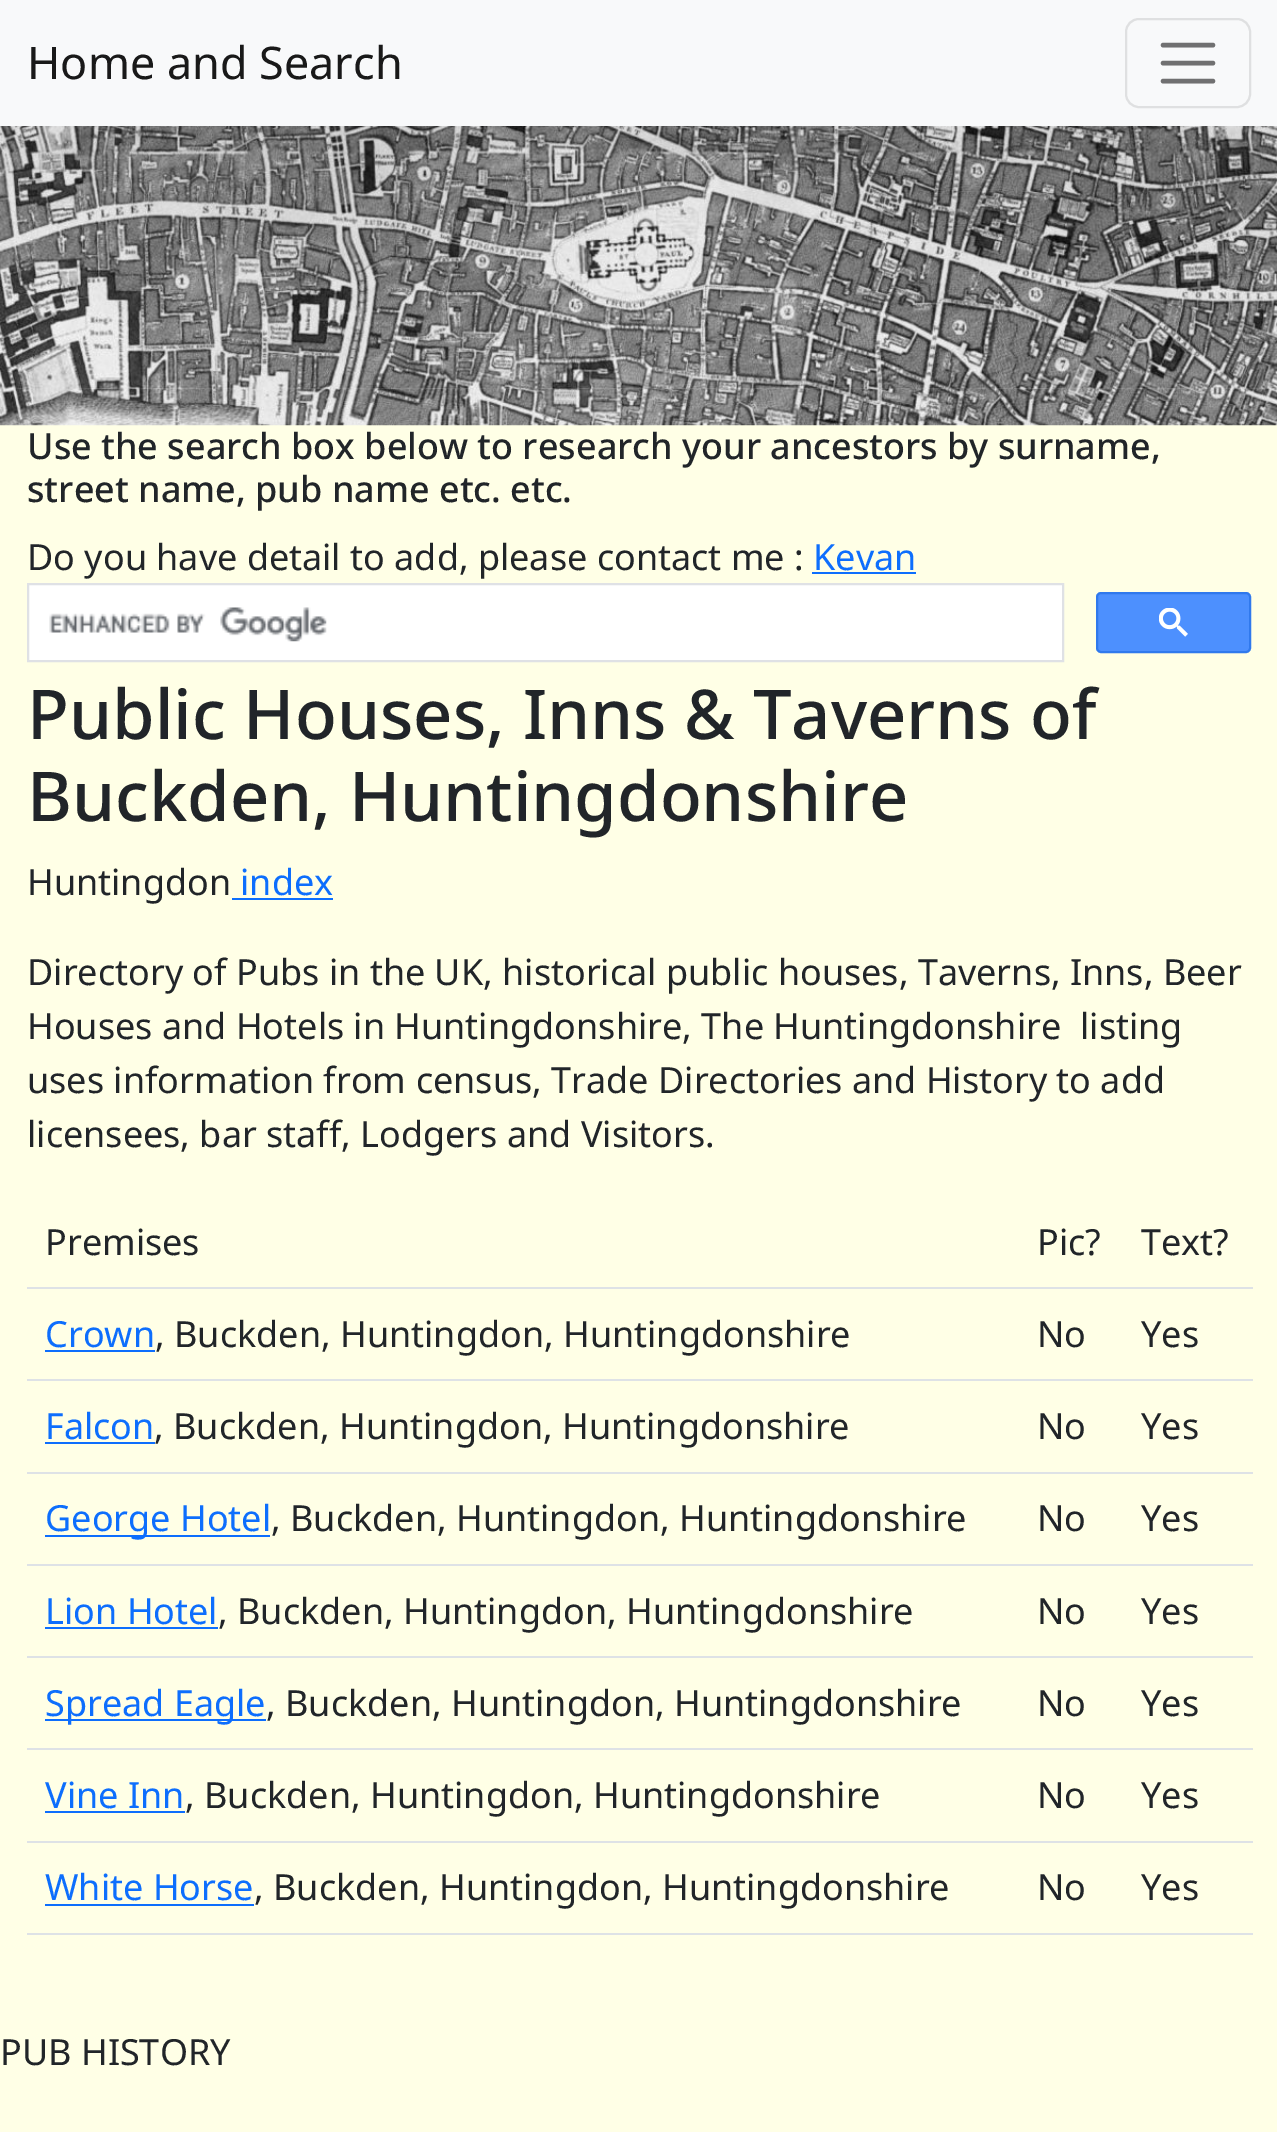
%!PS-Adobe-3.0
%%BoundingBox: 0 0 1277 2132
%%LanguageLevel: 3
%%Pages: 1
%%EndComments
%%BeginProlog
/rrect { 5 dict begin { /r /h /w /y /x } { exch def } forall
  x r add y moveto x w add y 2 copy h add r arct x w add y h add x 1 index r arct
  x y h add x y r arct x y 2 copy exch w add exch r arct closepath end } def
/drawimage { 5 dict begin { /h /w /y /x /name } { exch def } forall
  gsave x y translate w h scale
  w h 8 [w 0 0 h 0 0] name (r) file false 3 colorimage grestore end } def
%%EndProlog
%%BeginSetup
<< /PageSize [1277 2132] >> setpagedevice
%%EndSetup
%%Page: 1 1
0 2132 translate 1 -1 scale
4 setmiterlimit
1 1 0.902 setrgbcolor
0 0 1277 2132 rectfill
0.973 0.976 0.98 setrgbcolor
0 0 1277 126 rectfill
0.875 0.878 0.882 setrgbcolor
2 setlinewidth
1126 19 124 88 13 rrect stroke
0.439 0.439 0.443 setrgbcolor
4.5 setlinewidth
1 setlinecap
newpath 1163 45 moveto 1213 45 lineto 1163 63 moveto 1213 63 lineto 1163 81 moveto 1213 81 lineto stroke
(images/1.raw) 0 126 1277 300 drawimage
0.051 0.431 0.992 setrgbcolor
812 572 104 2 rectfill
1 setgray
newpath 28 584 moveto 1063 584 lineto 1063 661 lineto 28 661 lineto closepath gsave fill grestore
0.875 0.882 0.898 setrgbcolor
2 setlinewidth
0 setlinecap
stroke
(images/2.raw) 49 607 278 35 drawimage
0.302 0.565 0.996 setrgbcolor
1097 593 153 59 4 rrect gsave fill grestore
0.188 0.475 0.929 setrgbcolor
stroke
(images/3.raw) 1159 608 29 29 drawimage
0.051 0.431 0.992 setrgbcolor
232 898 101 2 rectfill
0.871 0.886 0.902 setrgbcolor
27 1287 1226 2 rectfill
0.051 0.431 0.992 setrgbcolor
45 1350 110 2 rectfill
0.871 0.886 0.902 setrgbcolor
27 1379 1226 2 rectfill
0.051 0.431 0.992 setrgbcolor
45 1442 110 2 rectfill
0.871 0.886 0.902 setrgbcolor
27 1472 1226 2 rectfill
0.051 0.431 0.992 setrgbcolor
45 1535 225 2 rectfill
0.871 0.886 0.902 setrgbcolor
27 1564 1226 2 rectfill
0.051 0.431 0.992 setrgbcolor
45 1627 173 2 rectfill
0.871 0.886 0.902 setrgbcolor
27 1656 1226 2 rectfill
0.051 0.431 0.992 setrgbcolor
45 1719 221 2 rectfill
0.871 0.886 0.902 setrgbcolor
27 1748 1226 2 rectfill
0.051 0.431 0.992 setrgbcolor
45 1811 140 2 rectfill
0.871 0.886 0.902 setrgbcolor
27 1841 1226 2 rectfill
0.051 0.431 0.992 setrgbcolor
45 1904 209 2 rectfill
0.871 0.886 0.902 setrgbcolor
27 1933 1226 2 rectfill
/NotoSans-Regular [45 0 0 -45 0 0] selectfont
0.098 setgray
27 79 moveto (Home and Search) show
/NotoSans-Medium [36 0 0 -36 0 0] selectfont
0.129 0.145 0.161 setrgbcolor
27 459 moveto (Use the search box below to research your ancestors by surname,) show
27 502 moveto (street name, pub name etc. etc.) show
/NotoSans-Regular [36 0 0 -36 0 0] selectfont
27 570 moveto (Do you have detail to add, please contact me :) show
0.051 0.431 0.992 setrgbcolor
813 570 moveto (Kevan) show
/NotoSans-Medium [68.7 0 0 -68.7 0 0] selectfont
0.129 0.145 0.161 setrgbcolor
27 739 moveto (Public Houses, Inns & Taverns of) show
27 821 moveto (Buckden, Huntingdonshire) show
/NotoSans-Regular [36 0 0 -36 0 0] selectfont
27 895 moveto (Huntingdon) show
0.051 0.431 0.992 setrgbcolor
240 895 moveto (index) show
0.129 0.145 0.161 setrgbcolor
27 985 moveto (Directory of Pubs in the UK, historical public houses, Taverns, Inns, Beer) show
27 1039 moveto (Houses and Hotels in Huntingdonshire, The Huntingdonshire) show
1080 1039 moveto (listing) show
27 1093 moveto (uses information from census, Trade Directories and History to add) show
27 1147 moveto (licensees, bar staff, Lodgers and Visitors.) show
45 1255 moveto (Premises) show
1037 1255 moveto (Pic?) show
1141 1255 moveto (Text?) show
0.051 0.431 0.992 setrgbcolor
45 1347 moveto (Crown) show
0.129 0.145 0.161 setrgbcolor
155 1347 moveto (, Buckden, Huntingdon, Huntingdonshire) show
1037 1347 moveto (No) show
1141 1347 moveto (Yes) show
0.051 0.431 0.992 setrgbcolor
45 1439 moveto (Falcon) show
0.129 0.145 0.161 setrgbcolor
154 1439 moveto (, Buckden, Huntingdon, Huntingdonshire) show
1037 1439 moveto (No) show
1141 1439 moveto (Yes) show
0.051 0.431 0.992 setrgbcolor
45 1531 moveto (George Hotel) show
0.129 0.145 0.161 setrgbcolor
271 1531 moveto (, Buckden, Huntingdon, Huntingdonshire) show
1037 1531 moveto (No) show
1141 1531 moveto (Yes) show
0.051 0.431 0.992 setrgbcolor
45 1624 moveto (Lion Hotel) show
0.129 0.145 0.161 setrgbcolor
218 1624 moveto (, Buckden, Huntingdon, Huntingdonshire) show
1037 1624 moveto (No) show
1141 1624 moveto (Yes) show
0.051 0.431 0.992 setrgbcolor
45 1716 moveto (Spread Eagle) show
0.129 0.145 0.161 setrgbcolor
266 1716 moveto (, Buckden, Huntingdon, Huntingdonshire) show
1037 1716 moveto (No) show
1141 1716 moveto (Yes) show
0.051 0.431 0.992 setrgbcolor
45 1808 moveto (Vine Inn) show
0.129 0.145 0.161 setrgbcolor
185 1808 moveto (, Buckden, Huntingdon, Huntingdonshire) show
1037 1808 moveto (No) show
1141 1808 moveto (Yes) show
0.051 0.431 0.992 setrgbcolor
45 1900 moveto (White Horse) show
0.129 0.145 0.161 setrgbcolor
254 1900 moveto (, Buckden, Huntingdon, Huntingdonshire) show
1037 1900 moveto (No) show
1141 1900 moveto (Yes) show
0 2065 moveto (PUB HISTORY) show
showpage
%%EOF
